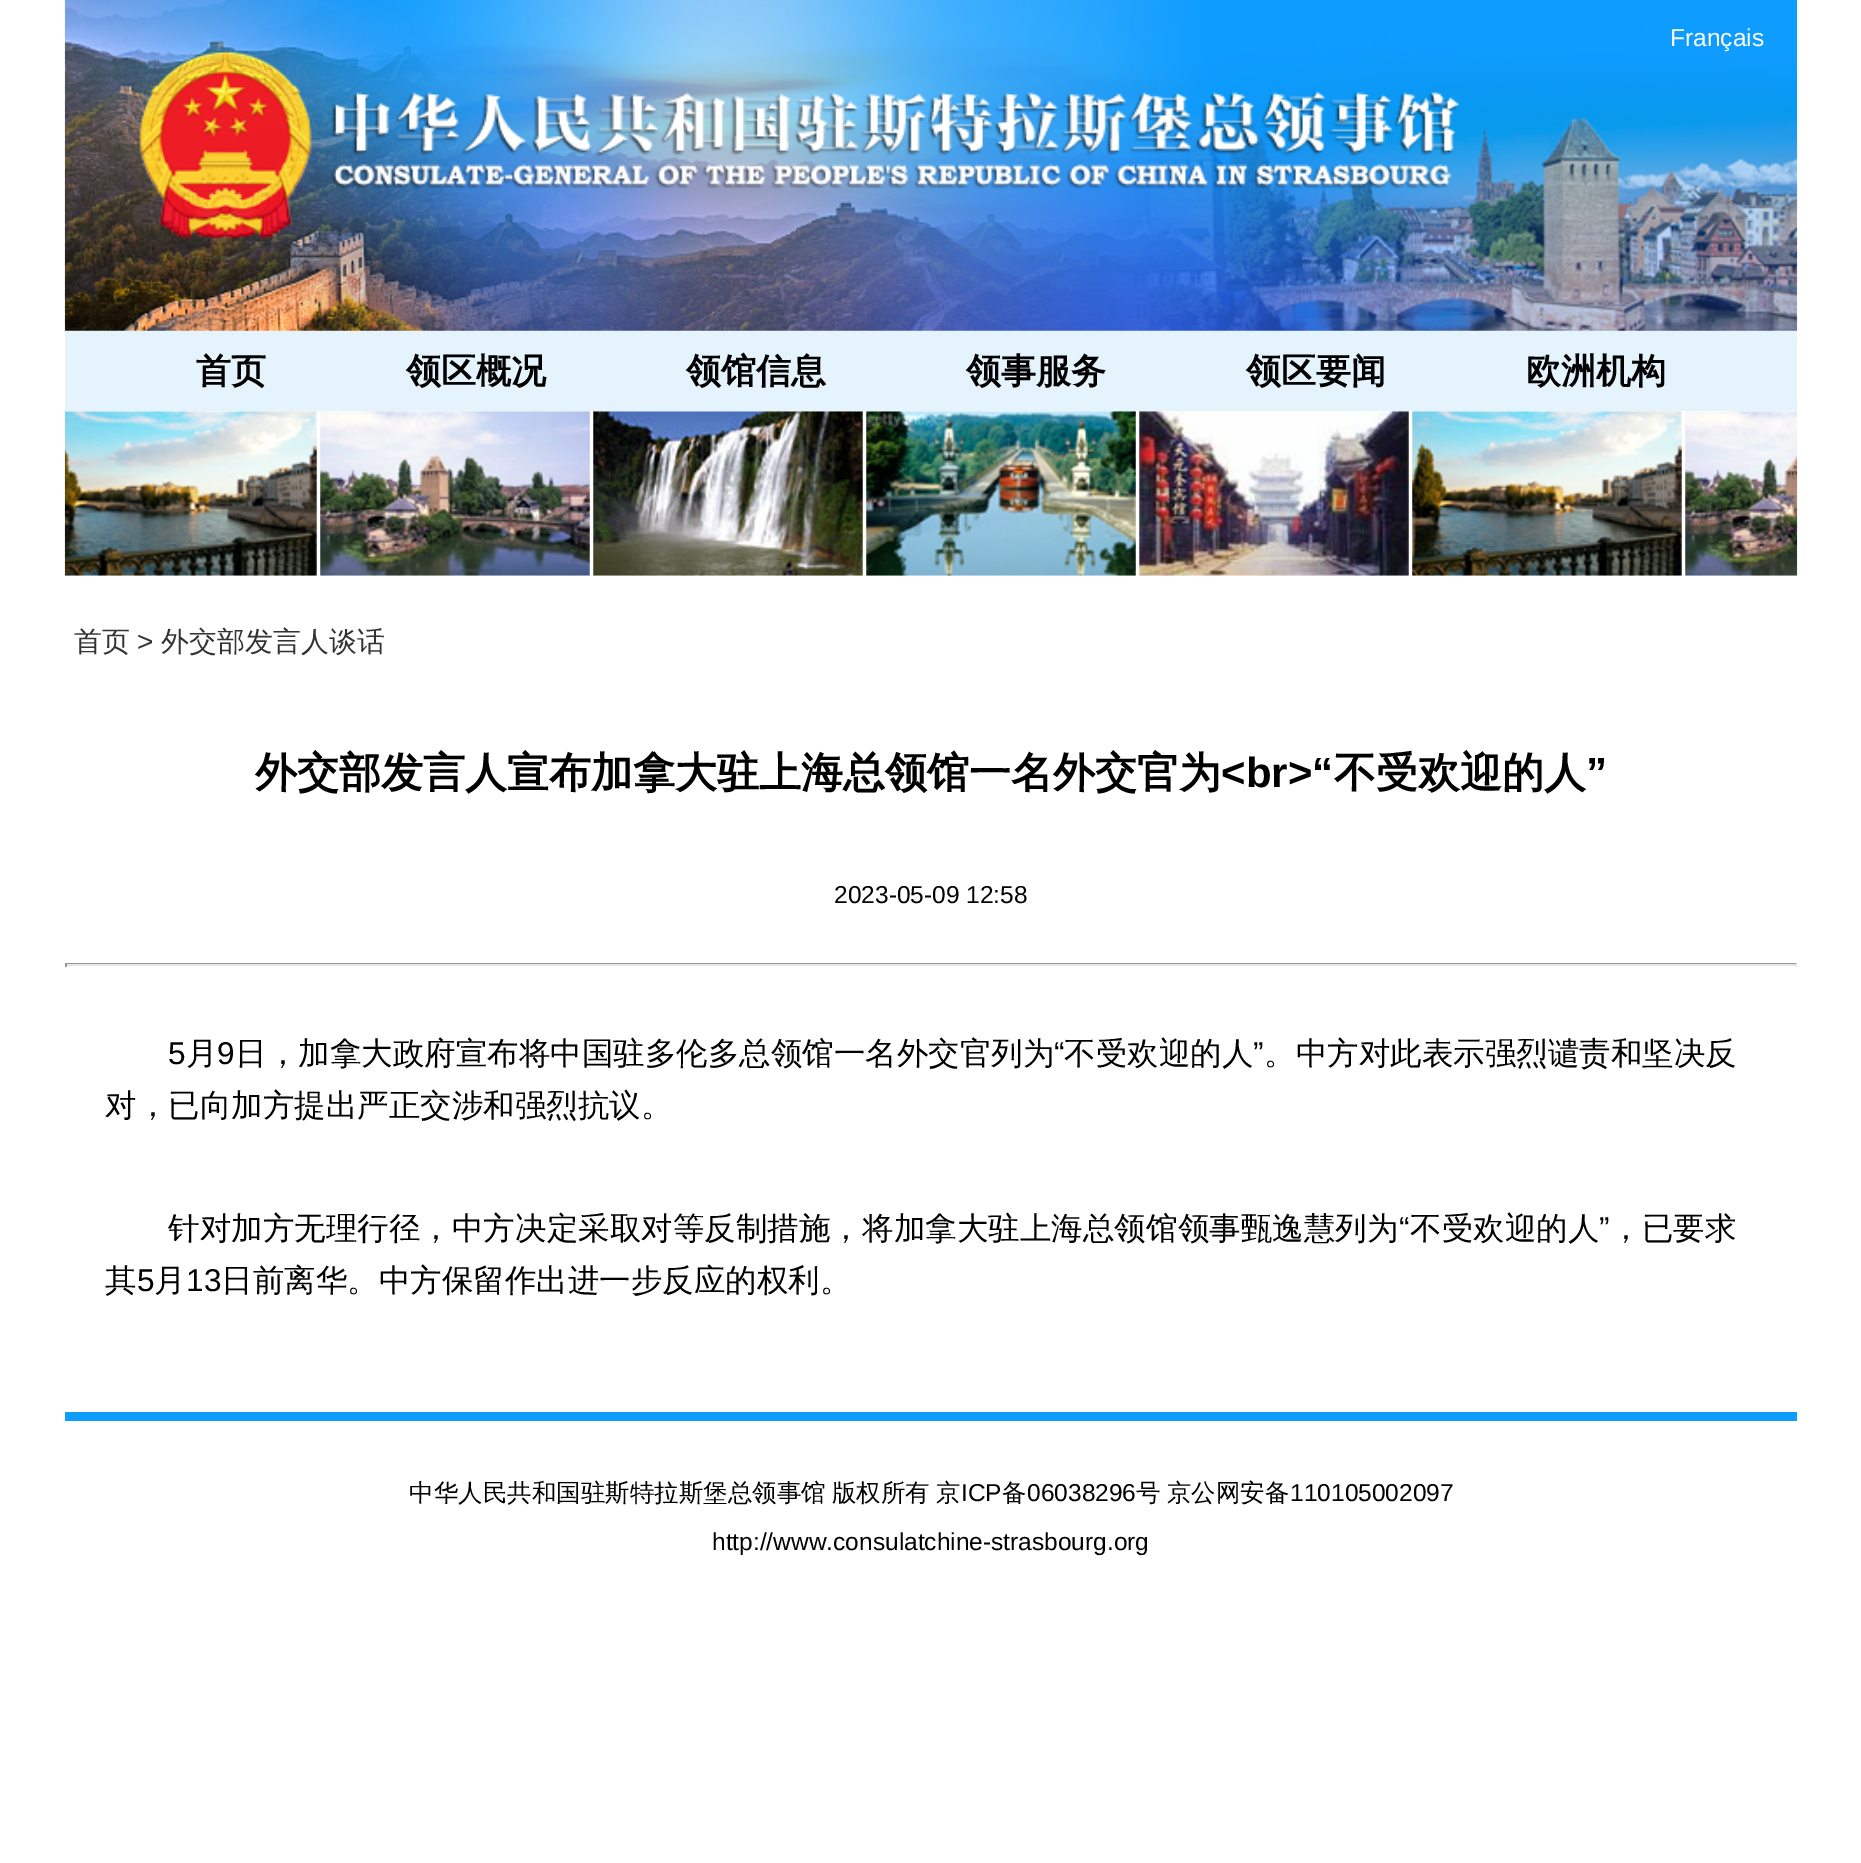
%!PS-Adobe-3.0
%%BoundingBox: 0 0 1861 1863
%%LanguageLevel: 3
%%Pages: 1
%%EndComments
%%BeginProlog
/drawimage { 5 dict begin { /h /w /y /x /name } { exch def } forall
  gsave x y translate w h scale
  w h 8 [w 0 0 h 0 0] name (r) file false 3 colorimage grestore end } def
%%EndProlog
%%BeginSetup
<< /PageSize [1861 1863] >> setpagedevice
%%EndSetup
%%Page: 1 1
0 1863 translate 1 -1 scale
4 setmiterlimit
1 setgray
0 0 1861 1863 rectfill
(images/1.raw) 64 0 1734 331 drawimage
0.894 0.953 0.988 setrgbcolor
65 331 1732 80 rectfill
(images/2.raw) 64 411 253 165 drawimage
(images/3.raw) 320 411 270 165 drawimage
(images/4.raw) 593 411 270 165 drawimage
(images/5.raw) 866 411 270 165 drawimage
(images/6.raw) 1139 411 270 165 drawimage
(images/7.raw) 1412 411 270 165 drawimage
(images/8.raw) 1685 411 113 165 drawimage
0.6 setgray
65 963 1732 1 rectfill
0.898 setgray
1796 963 1 4 rectfill
65 964 1732 2 rectfill
0.6 setgray
65 963 2 4 rectfill
0.055 0.612 0.996 setrgbcolor
65 1412 1732 9 rectfill
/LiberationSans-Regular [24.5 0 0 -24.5 0 0] selectfont
1 setgray
1670 46 moveto (Français) show
/WenQuanYiZenHei-Bold [35 0 0 -35 0 0] selectfont
0 setgray
196 383 moveto (首页) show
406 383 moveto (领区概况) show
686 383 moveto (领馆信息) show
966 383 moveto (领事服务) show
1246 383 moveto (领区要闻) show
1526 383 moveto (欧洲机构) show
/WenQuanYiZenHei-Medium [28 0 0 -28 0 0] selectfont
0.2 setgray
74 651 moveto (首页) show
/LiberationSans-Regular [28 0 0 -28 0 0] selectfont
137 651 moveto (>) show
/WenQuanYiZenHei-Medium [28 0 0 -28 0 0] selectfont
161 651 moveto (外交部发言人谈话) show
/WenQuanYiZenHei-Bold [42 0 0 -42 0 0] selectfont
0 setgray
255 787 moveto (外交部发言人宣布加拿大驻上海总领馆一名外交官为) show
/LiberationSans-Bold [42 0 0 -42 0 0] selectfont
1221 787 moveto (<br>“) show
/WenQuanYiZenHei-Bold [42 0 0 -42 0 0] selectfont
1334 787 moveto (不受欢迎的人) show
/LiberationSans-Bold [42 0 0 -42 0 0] selectfont
1586 787 moveto (”) show
/LiberationSans-Regular [24.5 0 0 -24.5 0 0] selectfont
834 903 moveto (2023-05-09 12:58) show
/LiberationSans-Regular [31.5 0 0 -31.5 0 0] selectfont
168 1064 moveto (5) show
/WenQuanYiZenHei-Medium [31.5 0 0 -31.5 0 0] selectfont
186 1064 moveto (月) show
/LiberationSans-Regular [31.5 0 0 -31.5 0 0] selectfont
217 1064 moveto (9) show
/WenQuanYiZenHei-Medium [31.5 0 0 -31.5 0 0] selectfont
235 1064 moveto (日，加拿大政府宣布将中国驻多伦多总领馆一名外交官列为) show
/LiberationSans-Regular [31.5 0 0 -31.5 0 0] selectfont
1054 1064 moveto (“) show
/WenQuanYiZenHei-Medium [31.5 0 0 -31.5 0 0] selectfont
1064 1064 moveto (不受欢迎的人) show
/LiberationSans-Regular [31.5 0 0 -31.5 0 0] selectfont
1253 1064 moveto (”) show
/WenQuanYiZenHei-Medium [31.5 0 0 -31.5 0 0] selectfont
1264 1064 moveto (。中方对此表示强烈谴责和坚决反) show
105 1116 moveto (对，已向加方提出严正交涉和强烈抗议。) show
168 1239 moveto 0.05 0 (针对加方无理行径，中方决定采取对等反制措施，将加拿大驻上海总领馆领事甄逸慧列为) ashow
/LiberationSans-Regular [31.5 0 0 -31.5 0 0] selectfont
1399 1239 moveto 0.05 0 (“) ashow
/WenQuanYiZenHei-Medium [31.5 0 0 -31.5 0 0] selectfont
1410 1239 moveto 0.05 0 (不受欢迎的人) ashow
/LiberationSans-Regular [31.5 0 0 -31.5 0 0] selectfont
1599 1239 moveto 0.05 0 (”) ashow
/WenQuanYiZenHei-Medium [31.5 0 0 -31.5 0 0] selectfont
1610 1239 moveto 0.05 0 (，已要求) ashow
105 1291 moveto (其) show
/LiberationSans-Regular [31.5 0 0 -31.5 0 0] selectfont
137 1291 moveto (5) show
/WenQuanYiZenHei-Medium [31.5 0 0 -31.5 0 0] selectfont
154 1291 moveto (月) show
/LiberationSans-Regular [31.5 0 0 -31.5 0 0] selectfont
186 1291 moveto (13) show
/WenQuanYiZenHei-Medium [31.5 0 0 -31.5 0 0] selectfont
221 1291 moveto (日前离华。中方保留作出进一步反应的权利。) show
/WenQuanYiZenHei-Medium [24.5 0 0 -24.5 0 0] selectfont
409 1501 moveto -1 0 32 (中华人民共和国驻斯特拉斯堡总领事馆 版权所有 京) widthshow
/LiberationSans-Regular [24.5 0 0 -24.5 0 0] selectfont
961 1501 moveto (ICP) show
/WenQuanYiZenHei-Medium [24.5 0 0 -24.5 0 0] selectfont
1002 1501 moveto (备) show
/LiberationSans-Regular [24.5 0 0 -24.5 0 0] selectfont
1027 1501 moveto (06038296) show
/WenQuanYiZenHei-Medium [24.5 0 0 -24.5 0 0] selectfont
1136 1501 moveto -1 0 32 (号 京公网安备) widthshow
/LiberationSans-Regular [24.5 0 0 -24.5 0 0] selectfont
1290 1501 moveto (110105002097) show
712 1550 moveto (http://www.consulatchine-strasbourg.org) show
showpage
%%EOF
